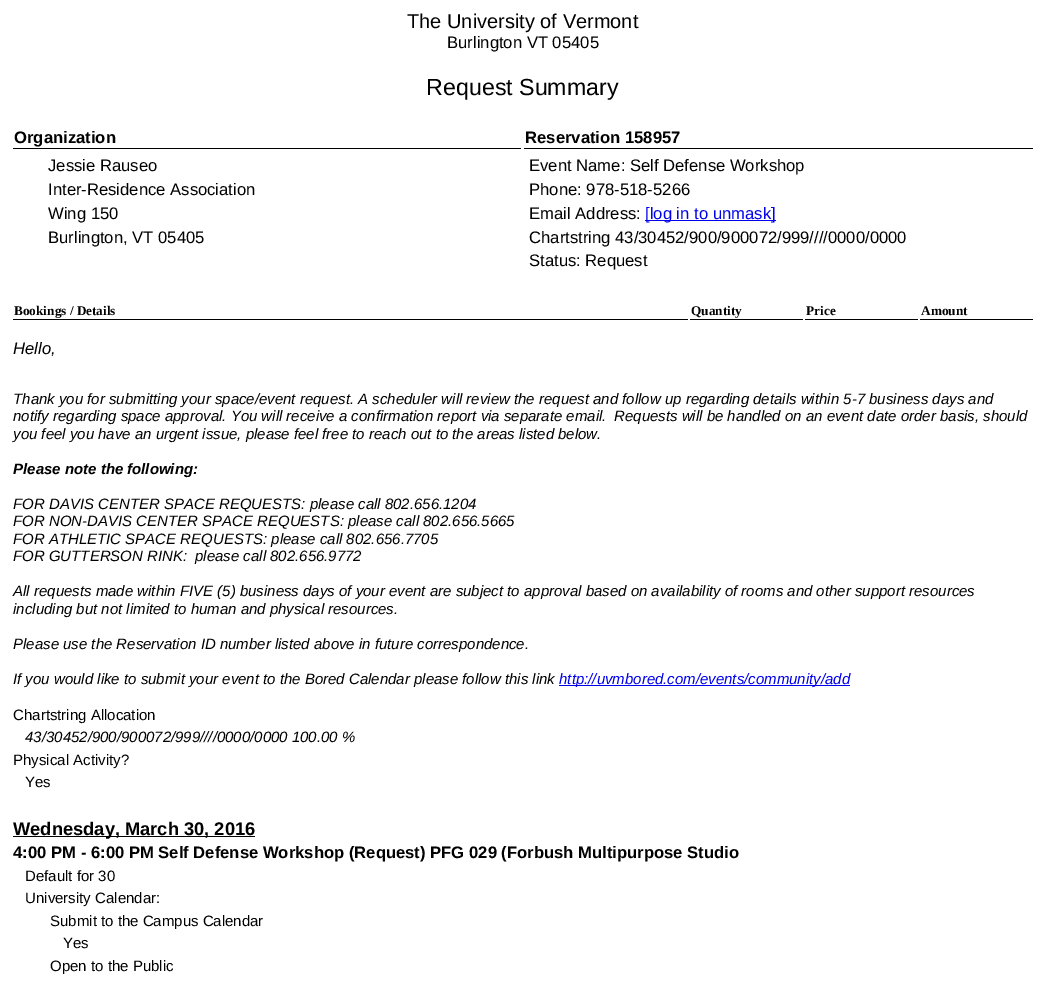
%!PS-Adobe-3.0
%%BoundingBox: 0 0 1044 984
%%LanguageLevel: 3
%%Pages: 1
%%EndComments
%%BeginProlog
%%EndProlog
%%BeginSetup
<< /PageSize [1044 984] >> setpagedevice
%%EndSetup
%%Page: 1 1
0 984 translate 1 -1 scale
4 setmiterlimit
1 setgray
0 0 1044 984 rectfill
0 setgray
13 148 508 1 rectfill
524 148 509 1 rectfill
0 0 0.933 setrgbcolor
645 220 131 1 rectfill
0 setgray
13 319 675 1 rectfill
690 319 113 1 rectfill
805 319 113 1 rectfill
920 319 113 1 rectfill
0 0 0.933 setrgbcolor
559 685 291 1 rectfill
0 setgray
13 836 242 1 rectfill
/LiberationSans-Regular [20 0 0 -20 0 0] selectfont
407 28 moveto (The University of Vermont) show
/LiberationSans-Regular [16.65 0 0 -16.65 0 0] selectfont
447 48 moveto (Burlington VT 05405) show
/LiberationSans-Regular [23.25 0 0 -23.25 0 0] selectfont
426 95 moveto (Request Summary) show
/LiberationSans-Bold [16.65 0 0 -16.65 0 0] selectfont
14 143 moveto (Organization) show
525 143 moveto (Reservation 158957) show
/LiberationSans-Regular [16.65 0 0 -16.65 0 0] selectfont
48 171 moveto (Jessie Rauseo) show
48 195 moveto (Inter-Residence Association) show
48 219 moveto (Wing 150) show
48 243 moveto (Burlington, VT 05405) show
529 171 moveto (Event Name: Self Defense Workshop) show
529 195 moveto (Phone: 978-518-5266) show
529 219 moveto (Email Address:) show
0 0 0.933 setrgbcolor
645 219 moveto ([log in to unmask]) show
0 setgray
529 243 moveto (Chartstring 43/30452/900/900072/999////0000/0000) show
529 266 moveto (Status: Request) show
/LiberationSerif-Bold [13.25 0 0 -13.25 0 0] selectfont
14 315 moveto (Bookings / Details) show
691 315 moveto (Quantity) show
806 315 moveto (Price) show
921 315 moveto (Amount) show
/LiberationSans-Italic [16.65 0 0 -16.65 0 0] selectfont
13 354 moveto (Hello,) show
/LiberationSans-Italic [15 0 0 -15 0 0] selectfont
13 404 moveto (Thank you for submitting your space/event request. A scheduler will review the request and follow up regarding details within 5-7 business days and) show
13 421 moveto (notify regarding space approval. You will receive a confirmation report via separate email.) show
614 421 moveto (Requests will be handled on an event date order basis, should) show
13 439 moveto (you feel you have an urgent issue, please feel free to reach out to the areas listed below.) show
/LiberationSans-BoldItalic [15 0 0 -15 0 0] selectfont
13 474 moveto (Please note the following:) show
/LiberationSans-Italic [15 0 0 -15 0 0] selectfont
13 509 moveto (FOR DAVIS CENTER SPACE REQUESTS: please call 802.656.1204) show
13 526 moveto (FOR NON-DAVIS CENTER SPACE REQUESTS: please call 802.656.5665) show
13 544 moveto (FOR ATHLETIC SPACE REQUESTS: please call 802.656.7705) show
13 561 moveto (FOR GUTTERSON RINK:) show
195 561 moveto (please call 802.656.9772) show
13 596 moveto (All requests made within FIVE \(5\) business days of your event are subject to approval based on availability of rooms and other support resources) show
13 614 moveto (including but not limited to human and physical resources.) show
13 649 moveto (Please use the Reservation ID number listed above in future correspondence.) show
13 684 moveto (If you would like to submit your event to the Bored Calendar please follow this link) show
0 0 0.933 setrgbcolor
559 684 moveto (http://uvmbored.com/events/community/add) show
/LiberationSans-Regular [15 0 0 -15 0 0] selectfont
0 setgray
13 720 moveto (Chartstring Allocation) show
/LiberationSans-Italic [15 0 0 -15 0 0] selectfont
25 742 moveto (43/30452/900/900072/999////0000/0000 100.00 %) show
/LiberationSans-Regular [15 0 0 -15 0 0] selectfont
13 765 moveto (Physical Activity?) show
25 787 moveto (Yes) show
/LiberationSans-Bold [18.3 0 0 -18.3 0 0] selectfont
13 835 moveto (Wednesday, March 30, 2016) show
/LiberationSans-Bold [16.65 0 0 -16.65 0 0] selectfont
13 858 moveto (4:00 PM - 6:00 PM Self Defense Workshop \(Request\) PFG 029 \(Forbush Multipurpose Studio) show
/LiberationSans-Regular [15 0 0 -15 0 0] selectfont
25 881 moveto (Default for 30) show
25 903 moveto (University Calendar:) show
50 926 moveto (Submit to the Campus Calendar) show
63 948 moveto (Yes) show
50 971 moveto (Open to the Public) show
showpage
%%EOF
